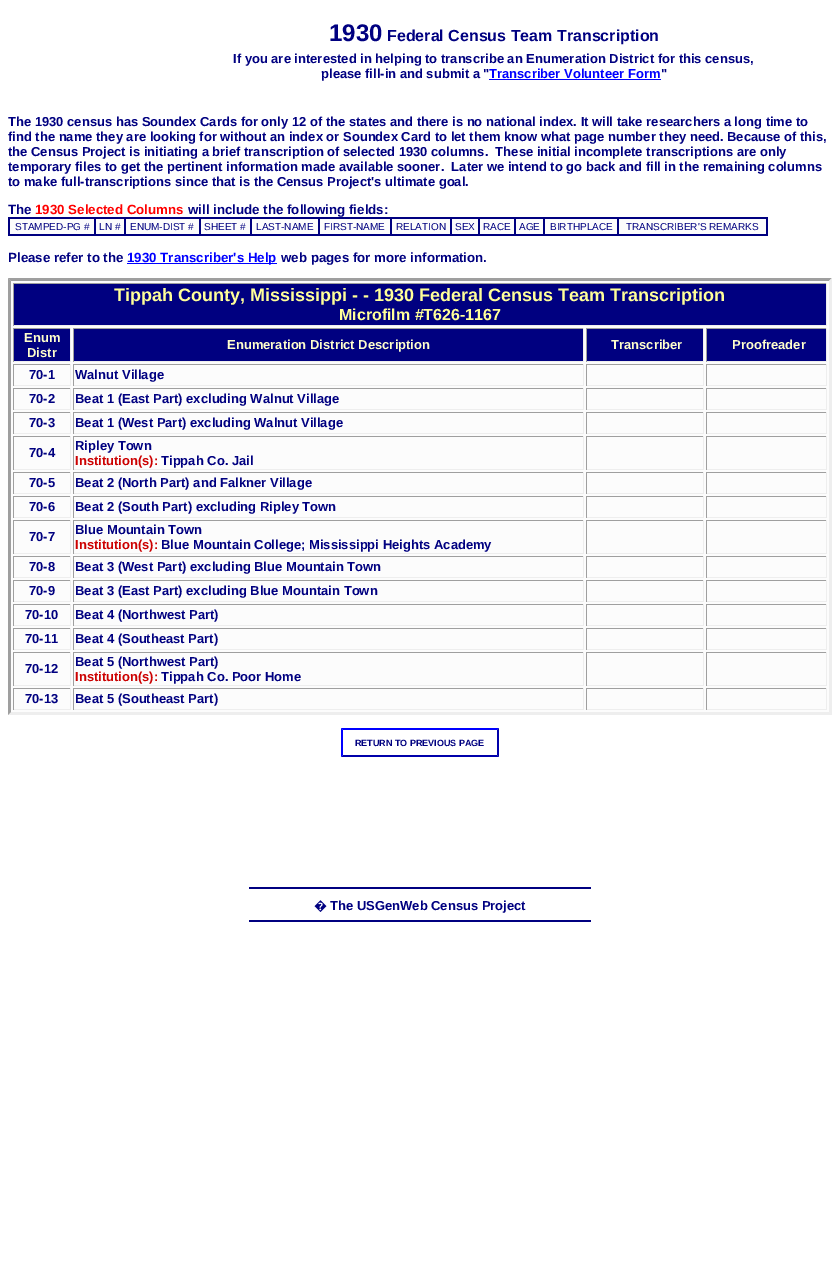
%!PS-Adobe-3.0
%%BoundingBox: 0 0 840 1273
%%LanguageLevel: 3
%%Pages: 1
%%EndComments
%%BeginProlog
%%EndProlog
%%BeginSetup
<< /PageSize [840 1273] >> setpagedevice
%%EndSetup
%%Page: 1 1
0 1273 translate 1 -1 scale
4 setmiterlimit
1 setgray
0 0 840 1273 rectfill
0 0 1 setrgbcolor
489 79 172 1 rectfill
0 0 0.502 setrgbcolor
8 217 760 19 rectfill
0.988 setgray
10 219 84 15 rectfill
96 219 28 15 rectfill
126 219 73 15 rectfill
201 219 49 15 rectfill
252 219 66 15 rectfill
320 219 70 15 rectfill
392 219 58 15 rectfill
452 219 26 15 rectfill
480 219 34 15 rectfill
516 219 27 15 rectfill
545 219 72 15 rectfill
619 219 147 15 rectfill
0 0 1 setrgbcolor
127 263 150 1 rectfill
0.988 setgray
8 278 824 437 rectfill
0.624 setgray
newpath 8 278 moveto 832 278 lineto 829 281 lineto 11 281 lineto closepath fill
0.933 setgray
newpath 832 278 moveto 832 715 lineto 829 712 lineto 829 281 lineto closepath fill
newpath 832 715 moveto 8 715 lineto 11 712 lineto 829 712 lineto closepath fill
0.624 setgray
newpath 8 715 moveto 8 278 lineto 11 281 lineto 11 712 lineto closepath fill
0 0 0.502 setrgbcolor
14 284 812 41 rectfill
0.624 setgray
13 283 814 1 rectfill
0.933 setgray
826 283 1 43 rectfill
13 325 814 1 rectfill
0.624 setgray
13 283 1 43 rectfill
0 0 0.502 setrgbcolor
14 329 56 32 rectfill
0.624 setgray
13 328 58 1 rectfill
0.933 setgray
70 328 1 34 rectfill
13 361 58 1 rectfill
0.624 setgray
13 328 1 34 rectfill
0 0 0.502 setrgbcolor
74 329 509 32 rectfill
0.624 setgray
73 328 511 1 rectfill
0.933 setgray
583 328 1 34 rectfill
73 361 511 1 rectfill
0.624 setgray
73 328 1 34 rectfill
0 0 0.502 setrgbcolor
587 329 116 32 rectfill
0.624 setgray
586 328 118 1 rectfill
0.933 setgray
703 328 1 34 rectfill
586 361 118 1 rectfill
0.624 setgray
586 328 1 34 rectfill
0 0 0.502 setrgbcolor
707 329 119 32 rectfill
0.624 setgray
706 328 121 1 rectfill
0.933 setgray
826 328 1 34 rectfill
706 361 121 1 rectfill
0.624 setgray
706 328 1 34 rectfill
13 364 58 1 rectfill
0.933 setgray
70 364 1 22 rectfill
13 385 58 1 rectfill
0.624 setgray
13 364 1 22 rectfill
73 364 511 1 rectfill
0.933 setgray
583 364 1 22 rectfill
73 385 511 1 rectfill
0.624 setgray
73 364 1 22 rectfill
586 364 118 1 rectfill
0.933 setgray
703 364 1 22 rectfill
586 385 118 1 rectfill
0.624 setgray
586 364 1 22 rectfill
706 364 121 1 rectfill
0.933 setgray
826 364 1 22 rectfill
706 385 121 1 rectfill
0.624 setgray
706 364 1 22 rectfill
13 388 58 1 rectfill
0.933 setgray
70 388 1 22 rectfill
13 409 58 1 rectfill
0.624 setgray
13 388 1 22 rectfill
73 388 511 1 rectfill
0.933 setgray
583 388 1 22 rectfill
73 409 511 1 rectfill
0.624 setgray
73 388 1 22 rectfill
586 388 118 1 rectfill
0.933 setgray
703 388 1 22 rectfill
586 409 118 1 rectfill
0.624 setgray
586 388 1 22 rectfill
706 388 121 1 rectfill
0.933 setgray
826 388 1 22 rectfill
706 409 121 1 rectfill
0.624 setgray
706 388 1 22 rectfill
13 412 58 1 rectfill
0.933 setgray
70 412 1 22 rectfill
13 433 58 1 rectfill
0.624 setgray
13 412 1 22 rectfill
73 412 511 1 rectfill
0.933 setgray
583 412 1 22 rectfill
73 433 511 1 rectfill
0.624 setgray
73 412 1 22 rectfill
586 412 118 1 rectfill
0.933 setgray
703 412 1 22 rectfill
586 433 118 1 rectfill
0.624 setgray
586 412 1 22 rectfill
706 412 121 1 rectfill
0.933 setgray
826 412 1 22 rectfill
706 433 121 1 rectfill
0.624 setgray
706 412 1 22 rectfill
13 436 58 1 rectfill
0.933 setgray
70 436 1 34 rectfill
13 469 58 1 rectfill
0.624 setgray
13 436 1 34 rectfill
73 436 511 1 rectfill
0.933 setgray
583 436 1 34 rectfill
73 469 511 1 rectfill
0.624 setgray
73 436 1 34 rectfill
586 436 118 1 rectfill
0.933 setgray
703 436 1 34 rectfill
586 469 118 1 rectfill
0.624 setgray
586 436 1 34 rectfill
706 436 121 1 rectfill
0.933 setgray
826 436 1 34 rectfill
706 469 121 1 rectfill
0.624 setgray
706 436 1 34 rectfill
13 472 58 1 rectfill
0.933 setgray
70 472 1 22 rectfill
13 493 58 1 rectfill
0.624 setgray
13 472 1 22 rectfill
73 472 511 1 rectfill
0.933 setgray
583 472 1 22 rectfill
73 493 511 1 rectfill
0.624 setgray
73 472 1 22 rectfill
586 472 118 1 rectfill
0.933 setgray
703 472 1 22 rectfill
586 493 118 1 rectfill
0.624 setgray
586 472 1 22 rectfill
706 472 121 1 rectfill
0.933 setgray
826 472 1 22 rectfill
706 493 121 1 rectfill
0.624 setgray
706 472 1 22 rectfill
13 496 58 1 rectfill
0.933 setgray
70 496 1 22 rectfill
13 517 58 1 rectfill
0.624 setgray
13 496 1 22 rectfill
73 496 511 1 rectfill
0.933 setgray
583 496 1 22 rectfill
73 517 511 1 rectfill
0.624 setgray
73 496 1 22 rectfill
586 496 118 1 rectfill
0.933 setgray
703 496 1 22 rectfill
586 517 118 1 rectfill
0.624 setgray
586 496 1 22 rectfill
706 496 121 1 rectfill
0.933 setgray
826 496 1 22 rectfill
706 517 121 1 rectfill
0.624 setgray
706 496 1 22 rectfill
13 520 58 1 rectfill
0.933 setgray
70 520 1 34 rectfill
13 553 58 1 rectfill
0.624 setgray
13 520 1 34 rectfill
73 520 511 1 rectfill
0.933 setgray
583 520 1 34 rectfill
73 553 511 1 rectfill
0.624 setgray
73 520 1 34 rectfill
586 520 118 1 rectfill
0.933 setgray
703 520 1 34 rectfill
586 553 118 1 rectfill
0.624 setgray
586 520 1 34 rectfill
706 520 121 1 rectfill
0.933 setgray
826 520 1 34 rectfill
706 553 121 1 rectfill
0.624 setgray
706 520 1 34 rectfill
13 556 58 1 rectfill
0.933 setgray
70 556 1 22 rectfill
13 577 58 1 rectfill
0.624 setgray
13 556 1 22 rectfill
73 556 511 1 rectfill
0.933 setgray
583 556 1 22 rectfill
73 577 511 1 rectfill
0.624 setgray
73 556 1 22 rectfill
586 556 118 1 rectfill
0.933 setgray
703 556 1 22 rectfill
586 577 118 1 rectfill
0.624 setgray
586 556 1 22 rectfill
706 556 121 1 rectfill
0.933 setgray
826 556 1 22 rectfill
706 577 121 1 rectfill
0.624 setgray
706 556 1 22 rectfill
13 580 58 1 rectfill
0.933 setgray
70 580 1 22 rectfill
13 601 58 1 rectfill
0.624 setgray
13 580 1 22 rectfill
73 580 511 1 rectfill
0.933 setgray
583 580 1 22 rectfill
73 601 511 1 rectfill
0.624 setgray
73 580 1 22 rectfill
586 580 118 1 rectfill
0.933 setgray
703 580 1 22 rectfill
586 601 118 1 rectfill
0.624 setgray
586 580 1 22 rectfill
706 580 121 1 rectfill
0.933 setgray
826 580 1 22 rectfill
706 601 121 1 rectfill
0.624 setgray
706 580 1 22 rectfill
13 604 58 1 rectfill
0.933 setgray
70 604 1 22 rectfill
13 625 58 1 rectfill
0.624 setgray
13 604 1 22 rectfill
73 604 511 1 rectfill
0.933 setgray
583 604 1 22 rectfill
73 625 511 1 rectfill
0.624 setgray
73 604 1 22 rectfill
586 604 118 1 rectfill
0.933 setgray
703 604 1 22 rectfill
586 625 118 1 rectfill
0.624 setgray
586 604 1 22 rectfill
706 604 121 1 rectfill
0.933 setgray
826 604 1 22 rectfill
706 625 121 1 rectfill
0.624 setgray
706 604 1 22 rectfill
13 628 58 1 rectfill
0.933 setgray
70 628 1 22 rectfill
13 649 58 1 rectfill
0.624 setgray
13 628 1 22 rectfill
73 628 511 1 rectfill
0.933 setgray
583 628 1 22 rectfill
73 649 511 1 rectfill
0.624 setgray
73 628 1 22 rectfill
586 628 118 1 rectfill
0.933 setgray
703 628 1 22 rectfill
586 649 118 1 rectfill
0.624 setgray
586 628 1 22 rectfill
706 628 121 1 rectfill
0.933 setgray
826 628 1 22 rectfill
706 649 121 1 rectfill
0.624 setgray
706 628 1 22 rectfill
13 652 58 1 rectfill
0.933 setgray
70 652 1 34 rectfill
13 685 58 1 rectfill
0.624 setgray
13 652 1 34 rectfill
73 652 511 1 rectfill
0.933 setgray
583 652 1 34 rectfill
73 685 511 1 rectfill
0.624 setgray
73 652 1 34 rectfill
586 652 118 1 rectfill
0.933 setgray
703 652 1 34 rectfill
586 685 118 1 rectfill
0.624 setgray
586 652 1 34 rectfill
706 652 121 1 rectfill
0.933 setgray
826 652 1 34 rectfill
706 685 121 1 rectfill
0.624 setgray
706 652 1 34 rectfill
13 688 58 1 rectfill
0.933 setgray
70 688 1 22 rectfill
13 709 58 1 rectfill
0.624 setgray
13 688 1 22 rectfill
73 688 511 1 rectfill
0.933 setgray
583 688 1 22 rectfill
73 709 511 1 rectfill
0.624 setgray
73 688 1 22 rectfill
586 688 118 1 rectfill
0.933 setgray
703 688 1 22 rectfill
586 709 118 1 rectfill
0.624 setgray
586 688 1 22 rectfill
706 688 121 1 rectfill
0.933 setgray
826 688 1 22 rectfill
706 709 121 1 rectfill
0.624 setgray
706 688 1 22 rectfill
0 0 1 setrgbcolor
newpath 341 728 moveto 499 728 lineto 497 730 lineto 343 730 lineto closepath fill
0 0 0.667 setrgbcolor
newpath 499 728 moveto 499 757 lineto 497 755 lineto 497 730 lineto closepath fill
newpath 499 757 moveto 341 757 lineto 343 755 lineto 497 755 lineto closepath fill
0 0 1 setrgbcolor
newpath 341 757 moveto 341 728 lineto 343 730 lineto 343 755 lineto closepath fill
0 0 0.502 setrgbcolor
249 887 342 2 rectfill
249 920 342 2 rectfill
/LiberationSans-Bold [24 0 0 -24 0 0] selectfont
329 41 moveto (1930) show
/LiberationSans-Bold [16 0 0 -16 0 0] selectfont
387 41 moveto (Federal Census Team Transcription) show
/LiberationSans-Bold [13 0 0 -13 0 0] selectfont
233 63 moveto (If you are interested in helping to transcribe an Enumeration District for this census,) show
321 78 moveto (please fill-in and submit a ") show
0 0 1 setrgbcolor
489 78 moveto (Transcriber Volunteer Form) show
0 0 0.502 setrgbcolor
661 78 moveto (") show
8 126 moveto (The 1930 census has Soundex Cards for only 12 of the states and there is no national index. It will take researchers a long time to) show
8 141 moveto (find the name they are looking for without an index or Soundex Card to let them know what page number they need. Because of this,) show
8 156 moveto (the Census Project is initiating a brief transcription of selected 1930 columns.  These initial incomplete transcriptions are only) show
8 171 moveto (temporary files to get the pertinent information made available sooner.  Later we intend to go back and fill in the remaining columns) show
8 186 moveto (to make full-transcriptions since that is the Census Project's ultimate goal.) show
/LiberationSans-Bold [13.3 0 0 -13.3 0 0] selectfont
8 214 moveto (The) show
1 0 0 setrgbcolor
35 214 moveto (1930 Selected Columns) show
0 0 0.502 setrgbcolor
188 214 moveto (will include the following fields:) show
/LiberationSans-Regular [10 0 0 -10 0 0] selectfont
15 230 moveto (STAMPED-PG #) show
99 230 moveto (LN #) show
130 230 moveto (ENUM-DIST #) show
204 230 moveto (SHEET #) show
256 230 moveto (LAST-NAME) show
324 230 moveto (FIRST-NAME) show
396 230 moveto (RELATION) show
455 230 moveto (SEX) show
483 230 moveto (RACE) show
519 230 moveto (AGE) show
550 230 moveto (BIRTHPLACE) show
626 230 moveto (TRANSCRIBER'S REMARKS) show
/LiberationSans-Bold [13.3 0 0 -13.3 0 0] selectfont
8 262 moveto (Please refer to the) show
0 0 1 setrgbcolor
127 262 moveto (1930 Transcriber's Help) show
0 0 0.502 setrgbcolor
281 262 moveto (web pages for more information.) show
/LiberationSans-Bold [18 0 0 -18 0 0] selectfont
1 1 0.6 setrgbcolor
114 301 moveto (Tippah County, Mississippi - - 1930 Federal Census Team Transcription) show
/LiberationSans-Bold [16 0 0 -16 0 0] selectfont
339 320 moveto (Microfilm #T626-1167) show
/LiberationSans-Bold [13 0 0 -13 0 0] selectfont
1 1 0.8 setrgbcolor
24 342 moveto (Enum) show
27 357 moveto (Distr) show
227 349 moveto (Enumeration District Description) show
611 349 moveto (Transcriber) show
732 349 moveto (Proofreader) show
0 0 0.502 setrgbcolor
29 379 moveto (70-1) show
75 379 moveto (Walnut Village) show
29 403 moveto (70-2) show
75 403 moveto (Beat 1 \(East Part\) excluding Walnut Village) show
29 427 moveto (70-3) show
75 427 moveto (Beat 1 \(West Part\) excluding Walnut Village) show
29 457 moveto (70-4) show
75 450 moveto (Ripley Town) show
0.8 0 0 setrgbcolor
75 465 moveto (Institution\(s\):) show
0 0 0.502 setrgbcolor
161 465 moveto (Tippah Co. Jail) show
29 487 moveto (70-5) show
75 487 moveto (Beat 2 \(North Part\) and Falkner Village) show
29 511 moveto (70-6) show
75 511 moveto (Beat 2 \(South Part\) excluding Ripley Town) show
29 541 moveto (70-7) show
75 534 moveto (Blue Mountain Town) show
0.8 0 0 setrgbcolor
75 549 moveto (Institution\(s\):) show
0 0 0.502 setrgbcolor
161 549 moveto (Blue Mountain College; Mississippi Heights Academy) show
29 571 moveto (70-8) show
75 571 moveto (Beat 3 \(West Part\) excluding Blue Mountain Town) show
29 595 moveto (70-9) show
75 595 moveto (Beat 3 \(East Part\) excluding Blue Mountain Town) show
25 619 moveto (70-10) show
75 619 moveto (Beat 4 \(Northwest Part\)) show
25 643 moveto (70-11) show
75 643 moveto (Beat 4 \(Southeast Part\)) show
25 673 moveto (70-12) show
75 666 moveto (Beat 5 \(Northwest Part\)) show
0.8 0 0 setrgbcolor
75 681 moveto (Institution\(s\):) show
0 0 0.502 setrgbcolor
161 681 moveto (Tippah Co. Poor Home) show
25 703 moveto (70-13) show
75 703 moveto (Beat 5 \(Southeast Part\)) show
/LiberationSans-Bold [9 0 0 -9 0 0] selectfont
355 746 moveto (RETURN TO PREVIOUS PAGE) show
/NotoSans-Black [13 0 0 -13 0 0] selectfont
314 910 moveto (�) show
/LiberationSans-Bold [13 0 0 -13 0 0] selectfont
330 910 moveto (The USGenWeb Census Project) show
showpage
%%EOF
